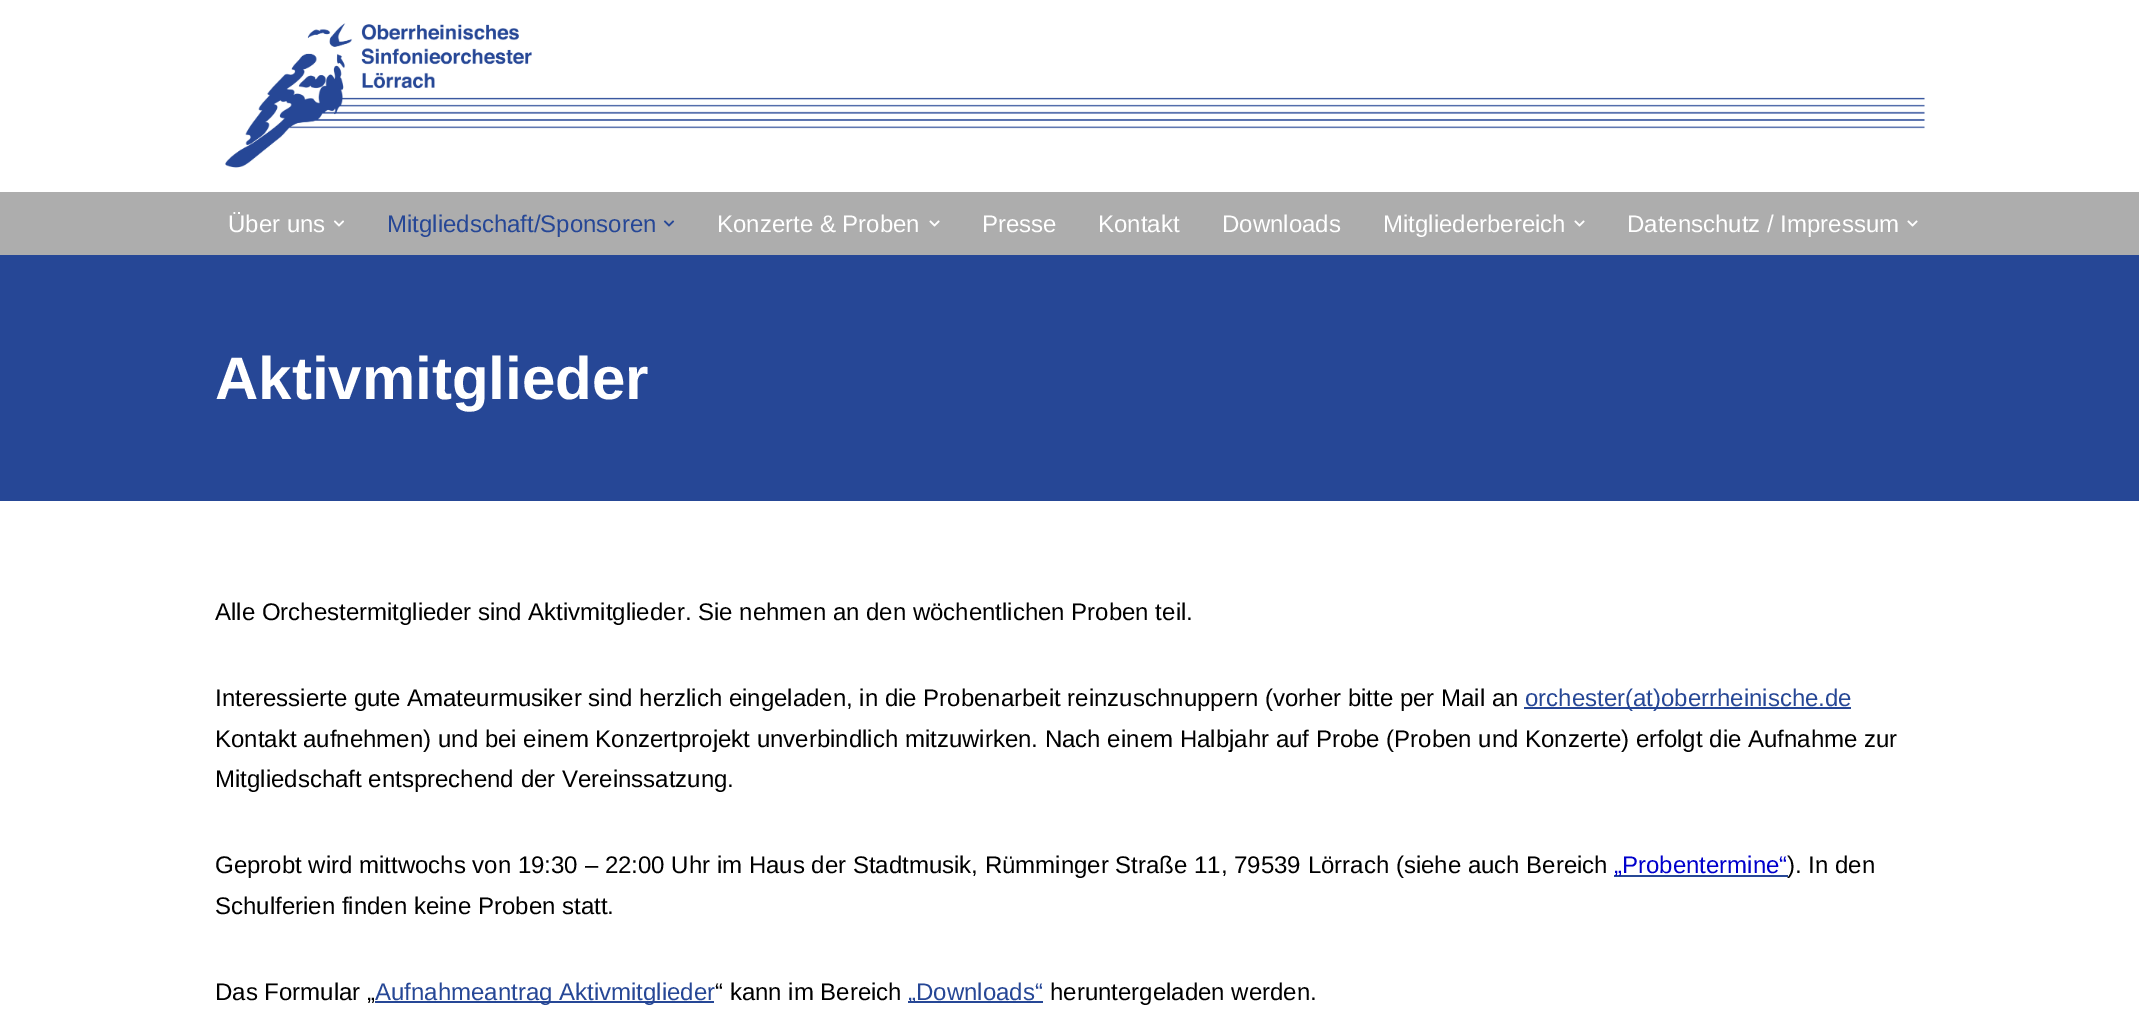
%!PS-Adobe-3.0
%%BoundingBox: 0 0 2139 1018
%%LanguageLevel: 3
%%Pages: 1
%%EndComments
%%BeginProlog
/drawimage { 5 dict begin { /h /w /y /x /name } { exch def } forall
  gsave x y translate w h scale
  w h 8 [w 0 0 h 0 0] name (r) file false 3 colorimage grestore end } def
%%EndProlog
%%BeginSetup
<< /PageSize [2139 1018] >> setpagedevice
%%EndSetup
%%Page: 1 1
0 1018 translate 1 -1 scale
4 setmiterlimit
1 setgray
0 0 2139 1018 rectfill
(images/1.raw) 225 23 1700 145 drawimage
0.678 setgray
0 192 2139 63 rectfill
(images/2.raw) 334 220 10 7 drawimage
(images/3.raw) 663 220 12 7 drawimage
(images/4.raw) 929 220 11 7 drawimage
(images/4.raw) 1574 220 11 7 drawimage
(images/4.raw) 1907 220 11 7 drawimage
0.149 0.278 0.588 setrgbcolor
0 255 2139 246 rectfill
1524 707 327 2 rectfill
1614 875 174 2 rectfill
375 1001 339 2 rectfill
908 1001 135 2 rectfill
/LiberationSans-Regular [24 0 0 -24 0 0] selectfont
1 setgray
228 232 moveto (Über uns) show
0.149 0.278 0.588 setrgbcolor
387 232 moveto (Mitgliedschaft/Sponsoren) show
1 setgray
717 232 moveto (Konzerte & Proben) show
982 232 moveto (Presse) show
1098 232 moveto (Kontakt) show
1222 232 moveto (Downloads) show
1383 232 moveto (Mitgliederbereich) show
1627 232 moveto (Datenschutz / Impressum) show
/LiberationSans-Bold [60 0 0 -60 0 0] selectfont
215 399 moveto (Aktivmitglieder) show
/LiberationSans-Regular [24 0 0 -24 0 0] selectfont
0 setgray
215 620 moveto (Alle Orchestermitglieder sind Aktivmitglieder. Sie nehmen an den wöchentlichen Proben teil.) show
215 706 moveto (Interessierte gute Amateurmusiker sind herzlich eingeladen, in die Probenarbeit reinzuschnuppern \(vorher bitte per Mail an) show
0.149 0.278 0.588 setrgbcolor
1525 706 moveto (orchester\(at\)oberrheinische.de) show
0 setgray
215 747 moveto (Kontakt aufnehmen\) und bei einem Konzertprojekt unverbindlich mitzuwirken. Nach einem Halbjahr auf Probe \(Proben und Konzerte\) erfolgt die Aufnahme zur) show
215 787 moveto (Mitgliedschaft entsprechend der Vereinssatzung.) show
215 873 moveto (Geprobt wird mittwochs von 19:30 – 22:00 Uhr im Haus der Stadtmusik, Rümminger Straße 11, 79539 Lörrach \(siehe auch Bereich) show
0 0 0.8 setrgbcolor
1614 873 moveto („Probentermine“) show
0 setgray
1787 873 moveto (\). In den) show
215 914 moveto (Schulferien finden keine Proben statt.) show
215 1000 moveto (Das Formular „) show
0.149 0.278 0.588 setrgbcolor
375 1000 moveto (Aufnahmeantrag Aktivmitglieder) show
0 setgray
715 1000 moveto (“ kann im Bereich) show
0.149 0.278 0.588 setrgbcolor
908 1000 moveto („Downloads“) show
0 setgray
1050 1000 moveto (heruntergeladen werden.) show
showpage
%%EOF
